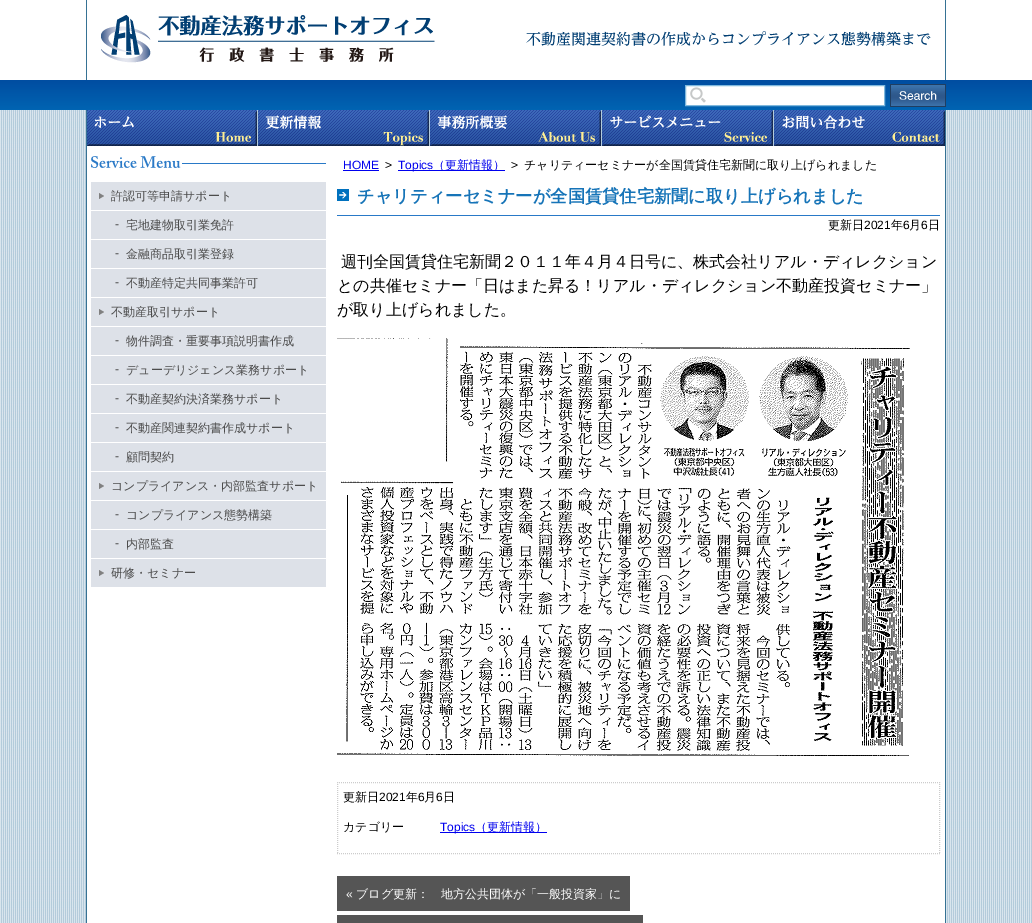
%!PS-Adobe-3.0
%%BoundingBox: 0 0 1032 923
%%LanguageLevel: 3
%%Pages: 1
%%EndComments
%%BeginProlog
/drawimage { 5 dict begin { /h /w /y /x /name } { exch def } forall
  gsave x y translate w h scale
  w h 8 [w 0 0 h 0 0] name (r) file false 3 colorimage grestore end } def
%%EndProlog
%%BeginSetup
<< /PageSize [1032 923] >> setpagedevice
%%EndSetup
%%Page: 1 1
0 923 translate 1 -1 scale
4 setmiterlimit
1 setgray
0 0 1032 923 rectfill
0.212 0.447 0.58 setrgbcolor
945 0 1 80 rectfill
86 0 1 80 rectfill
(images/1.raw) 101 15 830 48 drawimage
gsave newpath 0 80 moveto 1032 80 lineto 1032 110 lineto 0 110 lineto closepath clip newpath
<< /ShadingType 2 /ColorSpace /DeviceRGB /Coords [516 80 516 110] /Extend [true true] /Function << /FunctionType 2 /Domain [0 1] /C0 [0 0.302 0.631] /C1 [0 0.392 0.698] /N 1 >> >> shfill grestore
1 setgray
686 86 198 19 rectfill
(images/2.raw) 690 87 16 16 drawimage
0.498 0.722 0.867 setrgbcolor
685.5 85.5 199 20 rectstroke
(images/3.raw) 890 84 56 23 drawimage
(images/4.raw) 0 110 1032 36 drawimage
0.212 0.447 0.58 setrgbcolor
945 110 1 36 rectfill
86 110 1 36 rectfill
(images/5.raw) 87 110 170 36 drawimage
(images/6.raw) 258 110 171 36 drawimage
(images/7.raw) 430 110 171 36 drawimage
(images/8.raw) 602 110 171 36 drawimage
(images/9.raw) 774 110 171 36 drawimage
(images/10.raw) 0 146 1032 777 drawimage
1 setgray
87 146 858 777 rectfill
0.212 0.447 0.58 setrgbcolor
945 146 1 777 rectfill
86 146 1 777 rectfill
(images/11.raw) 91 156 235 16 drawimage
0.867 0.882 0.91 setrgbcolor
91 182 235 28 rectfill
0.502 setgray
newpath 99 199 moveto 99 193 lineto 104 196 lineto closepath fill
0.867 0.882 0.91 setrgbcolor
91 211 235 28 rectfill
91 240 235 28 rectfill
91 269 235 28 rectfill
91 298 235 28 rectfill
0.502 setgray
newpath 99 315 moveto 99 309 lineto 104 312 lineto closepath fill
0.867 0.882 0.91 setrgbcolor
91 327 235 28 rectfill
91 356 235 28 rectfill
91 385 235 28 rectfill
91 414 235 28 rectfill
91 443 235 28 rectfill
91 472 235 28 rectfill
0.502 setgray
newpath 99 489 moveto 99 483 lineto 104 486 lineto closepath fill
0.867 0.882 0.91 setrgbcolor
91 501 235 28 rectfill
91 530 235 28 rectfill
91 559 235 28 rectfill
0.502 setgray
newpath 99 576 moveto 99 570 lineto 104 573 lineto closepath fill
0 0 0.933 setrgbcolor
343 170 36 1 rectfill
398 170 107 1 rectfill
(images/12.raw) 337 189 12 12 drawimage
0.161 0.475 0.78 setrgbcolor
337 215 603 1 rectfill
(images/13.raw) 337 338 573 418 drawimage
0.8 setgray
[1 1] 0 setdash
newpath 337 782.5 moveto 940 782.5 lineto stroke
newpath 939.5 782 moveto 939.5 854 lineto stroke
newpath 337 853.5 moveto 940 853.5 lineto stroke
newpath 337.5 782 moveto 337.5 854 lineto stroke
0 0 0.933 setrgbcolor
440 832 107 1 rectfill
0.333 setgray
337 876 293 35 rectfill
337 915 306 8 rectfill
/WenQuanYiZenHei-Medium [12 0 0 -12 0 0] selectfont
0.298 setgray
111 200 moveto (許認可等申請サポート) show
/LiberationSans-Regular [12 0 0 -12 0 0] selectfont
115 228 moveto (-) show
/WenQuanYiZenHei-Medium [12 0 0 -12 0 0] selectfont
126 229 moveto (宅地建物取引業免許) show
/LiberationSans-Regular [12 0 0 -12 0 0] selectfont
115 257 moveto (-) show
/WenQuanYiZenHei-Medium [12 0 0 -12 0 0] selectfont
126 258 moveto (金融商品取引業登録) show
/LiberationSans-Regular [12 0 0 -12 0 0] selectfont
115 286 moveto (-) show
/WenQuanYiZenHei-Medium [12 0 0 -12 0 0] selectfont
126 287 moveto (不動産特定共同事業許可) show
111 316 moveto (不動産取引サポート) show
/LiberationSans-Regular [12 0 0 -12 0 0] selectfont
115 344 moveto (-) show
/WenQuanYiZenHei-Medium [12 0 0 -12 0 0] selectfont
126 345 moveto (物件調査・重要事項説明書作成) show
/LiberationSans-Regular [12 0 0 -12 0 0] selectfont
115 373 moveto (-) show
/WenQuanYiZenHei-Medium [12 0 0 -12 0 0] selectfont
126 374 moveto (デューデリジェンス業務サポート) show
/LiberationSans-Regular [12 0 0 -12 0 0] selectfont
115 402 moveto (-) show
/WenQuanYiZenHei-Medium [12 0 0 -12 0 0] selectfont
126 403 moveto (不動産契約決済業務サポート) show
/LiberationSans-Regular [12 0 0 -12 0 0] selectfont
115 431 moveto (-) show
/WenQuanYiZenHei-Medium [12 0 0 -12 0 0] selectfont
126 432 moveto (不動産関連契約書作成サポート) show
/LiberationSans-Regular [12 0 0 -12 0 0] selectfont
115 460 moveto (-) show
/WenQuanYiZenHei-Medium [12 0 0 -12 0 0] selectfont
126 461 moveto (顧問契約) show
111 490 moveto (コンプライアンス・内部監査サポート) show
/LiberationSans-Regular [12 0 0 -12 0 0] selectfont
115 518 moveto (-) show
/WenQuanYiZenHei-Medium [12 0 0 -12 0 0] selectfont
126 519 moveto (コンプライアンス態勢構築) show
/LiberationSans-Regular [12 0 0 -12 0 0] selectfont
115 547 moveto (-) show
/WenQuanYiZenHei-Medium [12 0 0 -12 0 0] selectfont
126 548 moveto (内部監査) show
111 577 moveto (研修・セミナー) show
/LiberationSans-Regular [12 0 0 -12 0 0] selectfont
0 0 0.933 setrgbcolor
343 169 moveto (HOME) show
0 setgray
385 169 moveto (>) show
0 0 0.933 setrgbcolor
398 169 moveto (Topics) show
/WenQuanYiZenHei-Medium [12 0 0 -12 0 0] selectfont
433 169 moveto (（更新情報）) show
/LiberationSans-Regular [12 0 0 -12 0 0] selectfont
0 setgray
511 169 moveto (>) show
/WenQuanYiZenHei-Medium [12 0 0 -12 0 0] selectfont
524 169 moveto (チャリティーセミナーが全国賃貸住宅新聞に取り上げられました) show
/WenQuanYiZenHei-Bold [17.25 0 0 -17.25 0 0] selectfont
0.086 0.455 0.722 setrgbcolor
357 202 moveto (チャリティーセミナーが全国賃貸住宅新聞に取り上げられました) show
/WenQuanYiZenHei-Medium [12 0 0 -12 0 0] selectfont
0 setgray
828 229 moveto (更新日) show
/LiberationSans-Regular [12 0 0 -12 0 0] selectfont
864 229 moveto (2021) show
/WenQuanYiZenHei-Medium [12 0 0 -12 0 0] selectfont
891 229 moveto (年) show
/LiberationSans-Regular [12 0 0 -12 0 0] selectfont
903 229 moveto (6) show
/WenQuanYiZenHei-Medium [12 0 0 -12 0 0] selectfont
909 229 moveto (月) show
/LiberationSans-Regular [12 0 0 -12 0 0] selectfont
921 229 moveto (6) show
/WenQuanYiZenHei-Medium [12 0 0 -12 0 0] selectfont
928 229 moveto (日) show
/WenQuanYiZenHei-Medium [16 0 0 -16 0 0] selectfont
341 267 moveto (週刊全国賃貸住宅新聞２０１１年４月４日号に、株式会社リアル・ディレクション) show
337 291 moveto (との共催セミナー「日はまた昇る！リアル・ディレクション不動産投資セミナー」) show
337 315 moveto (が取り上げられました。) show
/WenQuanYiZenHei-Medium [12 0 0 -12 0 0] selectfont
343 801 moveto (更新日) show
/LiberationSans-Regular [12 0 0 -12 0 0] selectfont
379 801 moveto (2021) show
/WenQuanYiZenHei-Medium [12 0 0 -12 0 0] selectfont
406 801 moveto (年) show
/LiberationSans-Regular [12 0 0 -12 0 0] selectfont
418 801 moveto (6) show
/WenQuanYiZenHei-Medium [12 0 0 -12 0 0] selectfont
424 801 moveto (月) show
/LiberationSans-Regular [12 0 0 -12 0 0] selectfont
436 801 moveto (6) show
/WenQuanYiZenHei-Medium [12 0 0 -12 0 0] selectfont
443 801 moveto (日) show
343 831 moveto (カテゴリー) show
/LiberationSans-Regular [12 0 0 -12 0 0] selectfont
0 0 0.933 setrgbcolor
440 831 moveto (Topics) show
/WenQuanYiZenHei-Medium [12 0 0 -12 0 0] selectfont
475 831 moveto (（更新情報）) show
/LiberationSans-Regular [12 0 0 -12 0 0] selectfont
1 setgray
346 898 moveto («) show
/WenQuanYiZenHei-Medium [12 0 0 -12 0 0] selectfont
356 898 moveto (ブログ更新：　地方公共団体が「一般投資家」に) show
showpage
%%EOF
